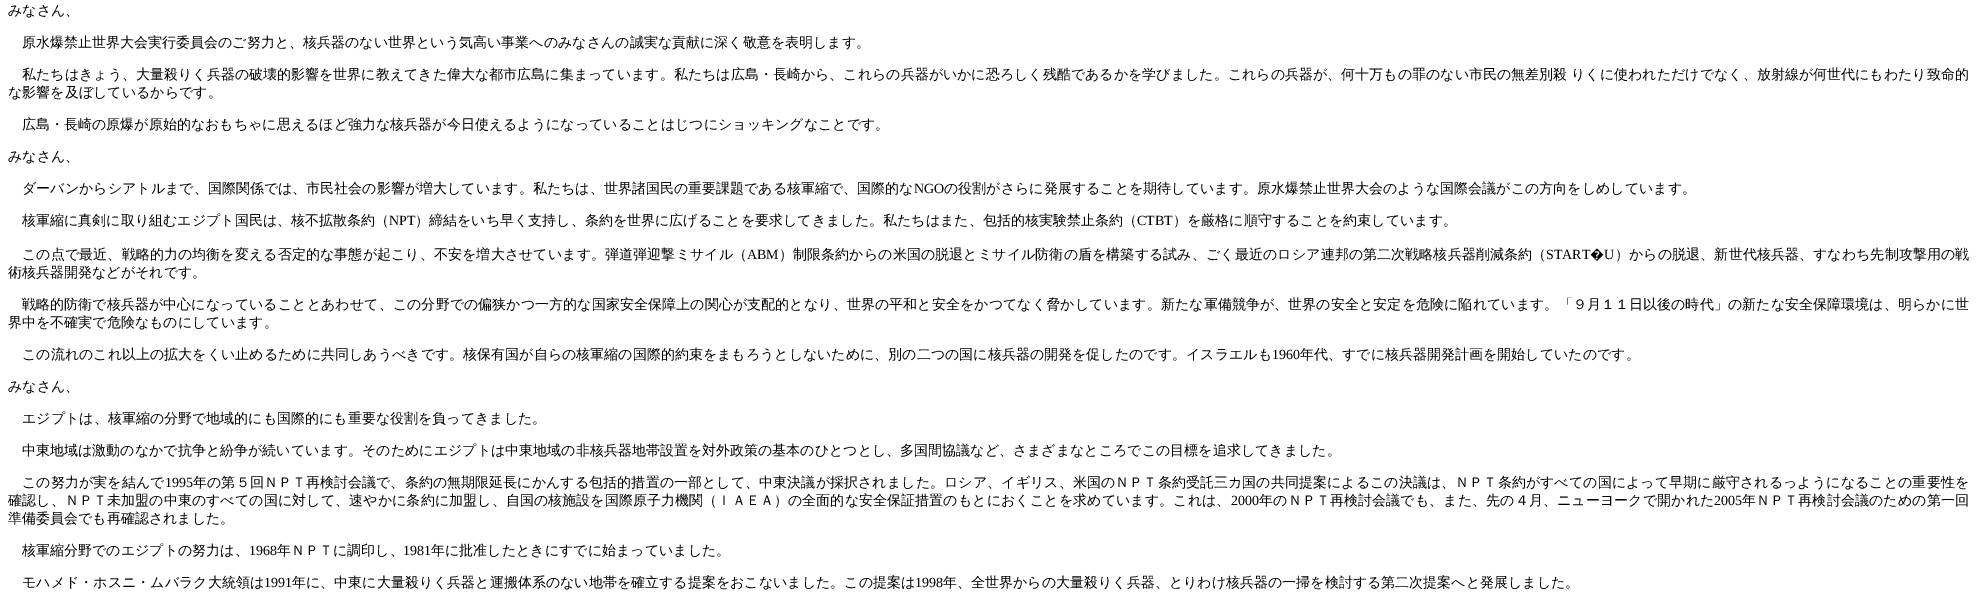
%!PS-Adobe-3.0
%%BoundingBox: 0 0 1977 593
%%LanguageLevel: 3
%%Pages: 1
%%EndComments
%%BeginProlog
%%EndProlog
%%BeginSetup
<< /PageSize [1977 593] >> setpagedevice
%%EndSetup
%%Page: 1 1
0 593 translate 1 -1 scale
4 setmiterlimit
1 setgray
0 0 1977 593 rectfill
/WenQuanYiZenHei-Medium [14 0 0 -14 0 0] selectfont
0 setgray
8 15 moveto (みなさん、) show
22 47 moveto (原水爆禁止世界大会実行委員会のご努力と、核兵器のない世界という気高い事業へのみなさんの誠実な貢献に深く敬意を表明します。) show
22 79 moveto (私たちはきょう、大量殺りく兵器の破壊的影響を世界に教えてきた偉大な都市広島に集まっています。私たちは広島・長崎から、これらの兵器がいかに恐ろしく残酷であるかを学びました。これらの兵器が、何十万もの罪のない市民の無差別殺) show
1571 79 moveto (りくに使われただけでなく、放射線が何世代にもわたり致命的) show
8 97 moveto (な影響を及ぼしているからです。) show
22 129 moveto (広島・長崎の原爆が原始的なおもちゃに思えるほど強力な核兵器が今日使えるようになっていることはじつにショッキングなことです。) show
8 161 moveto (みなさん、) show
22 193 moveto (ダーバンからシアトルまで、国際関係では、市民社会の影響が増大しています。私たちは、世界諸国民の重要課題である核軍縮で、国際的な) show
/LiberationSerif-Regular [14 0 0 -14 0 0] selectfont
914 193 moveto (NGO) show
/WenQuanYiZenHei-Medium [14 0 0 -14 0 0] selectfont
944 193 moveto (の役割がさらに発展することを期待しています。原水爆禁止世界大会のような国際会議がこの方向をしめしています。) show
22 225 moveto (核軍縮に真剣に取り組むエジプト国民は、核不拡散条約（) show
/LiberationSerif-Regular [14 0 0 -14 0 0] selectfont
389 225 moveto (NPT) show
/WenQuanYiZenHei-Medium [14 0 0 -14 0 0] selectfont
415 225 moveto (）締結をいち早く支持し、条約を世界に広げることを要求してきました。私たちはまた、包括的核実験禁止条約（) show
/LiberationSerif-Regular [14 0 0 -14 0 0] selectfont
1137 225 moveto (CTBT) show
/WenQuanYiZenHei-Medium [14 0 0 -14 0 0] selectfont
1173 225 moveto (）を厳格に順守することを約束しています。) show
22 259 moveto 0.08 0 (この点で最近、戦略的力の均衡を変える否定的な事態が起こり、不安を増大させています。弾道弾迎撃ミサイル（) ashow
/LiberationSerif-Regular [14 0 0 -14 0 0] selectfont
747 259 moveto (ABM) show
/WenQuanYiZenHei-Medium [14 0 0 -14 0 0] selectfont
779 259 moveto 0.08 0 (）制限条約からの米国の脱退とミサイル防衛の盾を構築する試み、ごく最近のロシア連邦の第二次戦略核兵器削減条約（) ashow
/LiberationSerif-Regular [14 0 0 -14 0 0] selectfont
1546 259 moveto (START) show
/NotoSans-Regular [14 0 0 -14 0 0] selectfont
1590 259 moveto 0.07 0 (�) ashow
/LiberationSerif-Regular [14 0 0 -14 0 0] selectfont
1604 259 moveto 0.07 0 (U) ashow
/WenQuanYiZenHei-Medium [14 0 0 -14 0 0] selectfont
1615 259 moveto 0.07 0 (）からの脱退、新世代核兵器、すなわち先制攻撃用の戦) ashow
8 277 moveto (術核兵器開発などがそれです。) show
22 309 moveto 0.07 0 (戦略的防衛で核兵器が中心になっていることとあわせて、この分野での偏狭かつ一方的な国家安全保障上の関心が支配的となり、世界の平和と安全をかつてなく脅かしています。新たな軍備競争が、世界の安全と安定を危険に陥れています。「９月１１日以後の時代」の新たな安全保障環境は、明らかに世) ashow
8 327 moveto (界中を不確実で危険なものにしています。) show
22 359 moveto (この流れのこれ以上の拡大をくい止めるために共同しあうべきです。核保有国が自らの核軍縮の国際的約束をまもろうとしないために、別の二つの国に核兵器の開発を促したのです。イスラエルも) show
/LiberationSerif-Regular [14 0 0 -14 0 0] selectfont
1272 359 moveto (1960) show
/WenQuanYiZenHei-Medium [14 0 0 -14 0 0] selectfont
1300 359 moveto (年代、すでに核兵器開発計画を開始していたのです。) show
8 391 moveto (みなさん、) show
22 423 moveto (エジプトは、核軍縮の分野で地域的にも国際的にも重要な役割を負ってきました。) show
22 455 moveto (中東地域は激動のなかで抗争と紛争が続いています。そのためにエジプトは中東地域の非核兵器地帯設置を対外政策の基本のひとつとし、多国間協議など、さまざまなところでこの目標を追求してきました。) show
22 487 moveto 0.07 0 (この努力が実を結んで) ashow
/LiberationSerif-Regular [14 0 0 -14 0 0] selectfont
165 487 moveto (1995) show
/WenQuanYiZenHei-Medium [14 0 0 -14 0 0] selectfont
193 487 moveto 0.06 0 (年の第５回ＮＰＴ再検討会議で、条約の無期限延長にかんする包括的措置の一部として、中東決議が採択されました。ロシア、イギリス、米国のＮＰＴ条約受託三カ国の共同提案によるこの決議は、ＮＰＴ条約がすべての国によって早期に厳守されるっようになることの重要性を) ashow
8 505 moveto 0.08 0 (確認し、ＮＰＴ未加盟の中東のすべての国に対して、速やかに条約に加盟し、自国の核施設を国際原子力機関（ＩＡＥＡ）の全面的な安全保証措置のもとにおくことを求めています。これは、) ashow
/LiberationSerif-Regular [14 0 0 -14 0 0] selectfont
1231 505 moveto (2000) show
/WenQuanYiZenHei-Medium [14 0 0 -14 0 0] selectfont
1259 505 moveto 0.1 0 (年のＮＰＴ再検討会議でも、また、先の４月、ニューヨークで開かれた) ashow
/LiberationSerif-Regular [14 0 0 -14 0 0] selectfont
1714 505 moveto (2005) show
/WenQuanYiZenHei-Medium [14 0 0 -14 0 0] selectfont
1742 505 moveto 0.1 0 (年ＮＰＴ再検討会議のための第一回) ashow
8 523 moveto (準備委員会でも再確認されました。) show
22 555 moveto (核軍縮分野でのエジプトの努力は、) show
/LiberationSerif-Regular [14 0 0 -14 0 0] selectfont
249 555 moveto (1968) show
/WenQuanYiZenHei-Medium [14 0 0 -14 0 0] selectfont
277 555 moveto (年ＮＰＴに調印し、) show
/LiberationSerif-Regular [14 0 0 -14 0 0] selectfont
403 555 moveto (1981) show
/WenQuanYiZenHei-Medium [14 0 0 -14 0 0] selectfont
431 555 moveto (年に批准したときにすでに始まっていました。) show
22 587 moveto (モハメド・ホスニ・ムバラク大統領は) show
/LiberationSerif-Regular [14 0 0 -14 0 0] selectfont
264 587 moveto (1991) show
/WenQuanYiZenHei-Medium [14 0 0 -14 0 0] selectfont
292 587 moveto (年に、中東に大量殺りく兵器と運搬体系のない地帯を確立する提案をおこないました。この提案は) show
/LiberationSerif-Regular [14 0 0 -14 0 0] selectfont
915 587 moveto (1998) show
/WenQuanYiZenHei-Medium [14 0 0 -14 0 0] selectfont
943 587 moveto (年、全世界からの大量殺りく兵器、とりわけ核兵器の一掃を検討する第二次提案へと発展しました。) show
showpage
%%EOF
